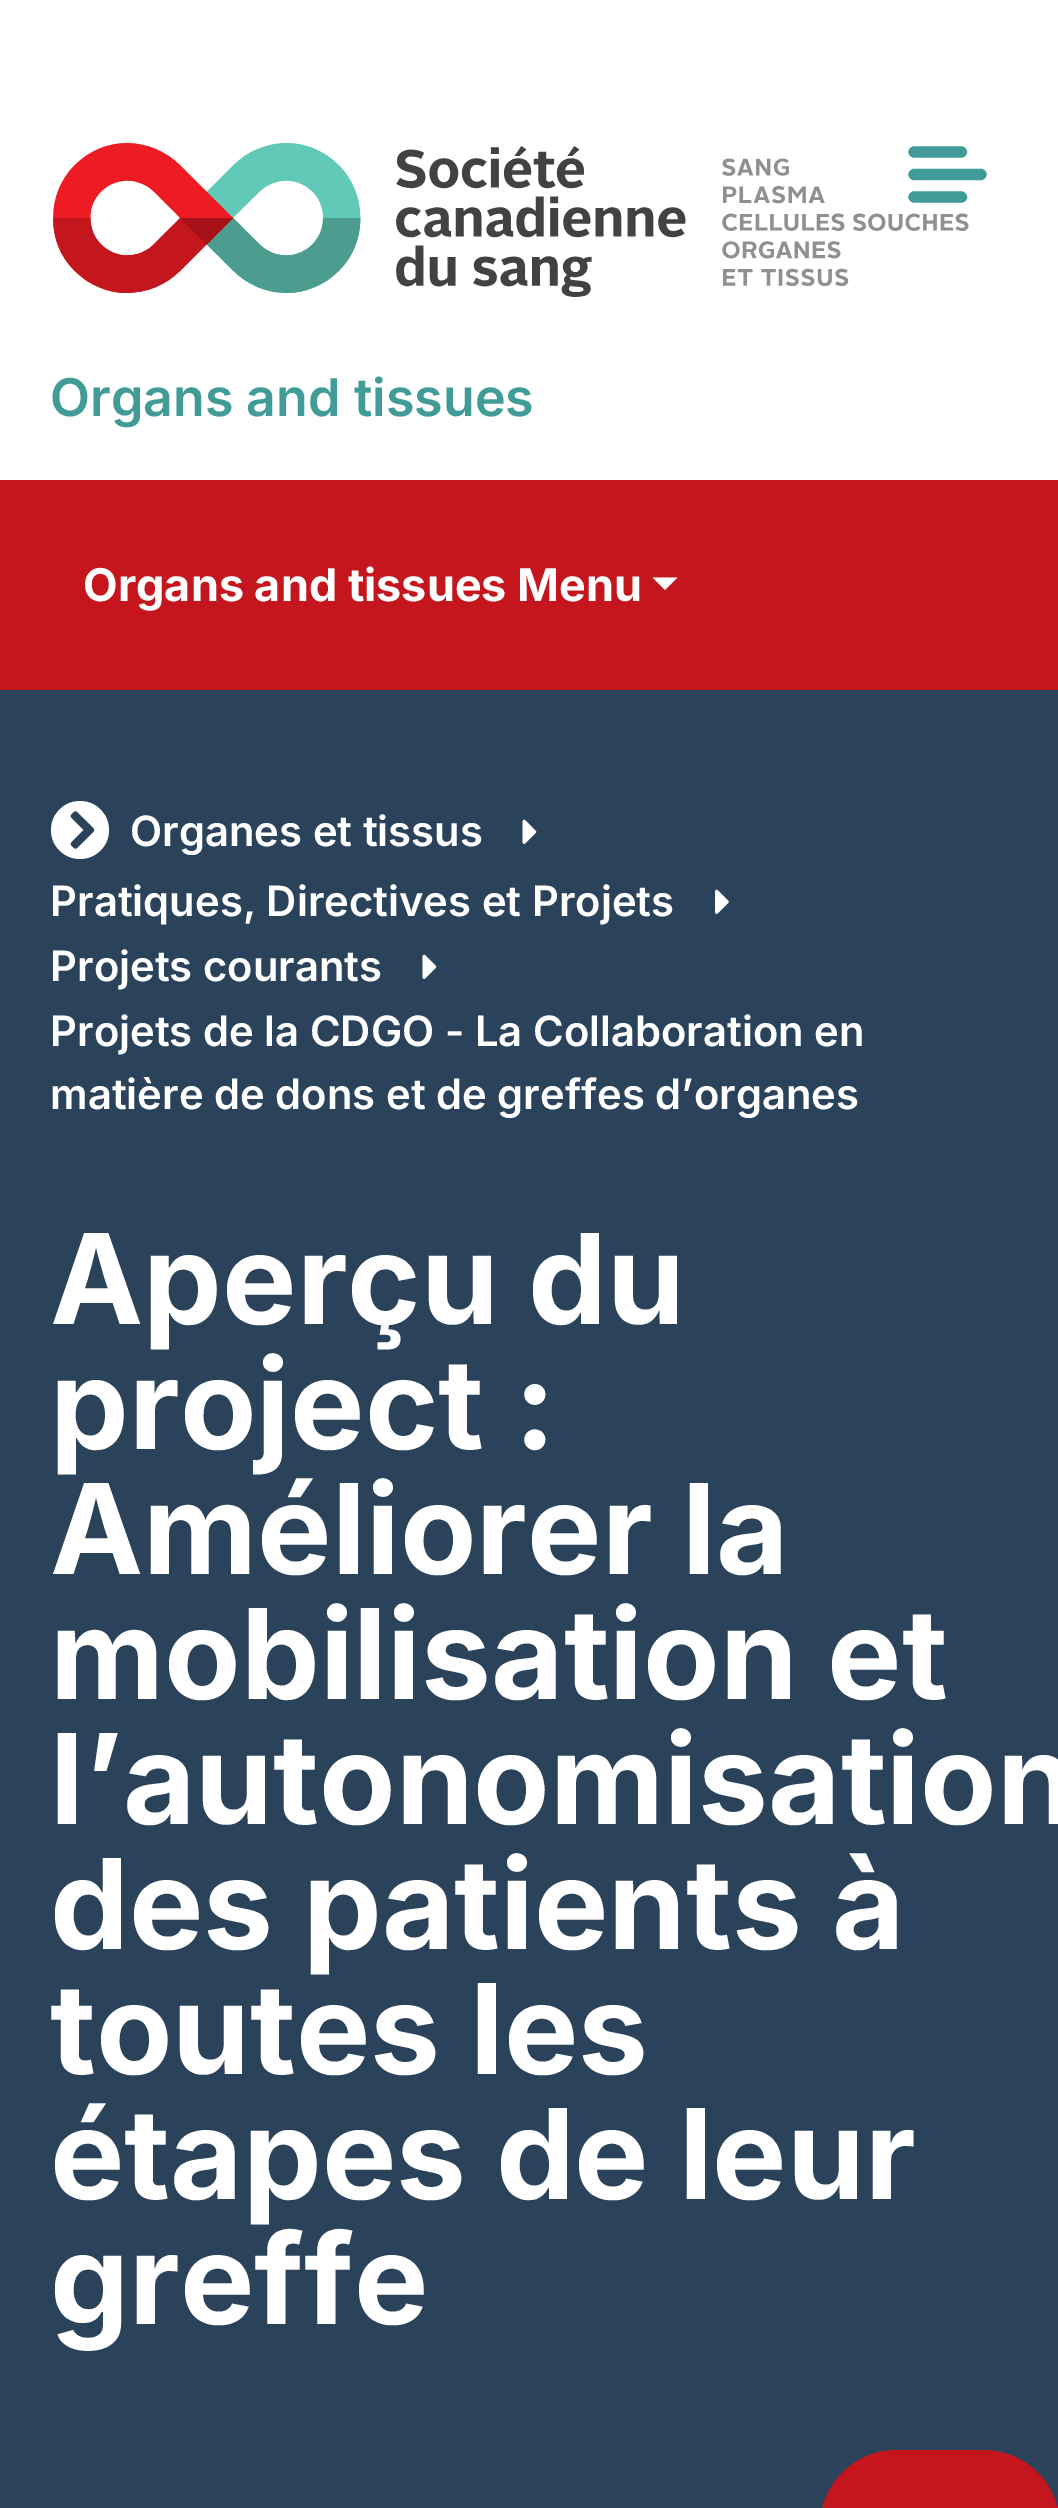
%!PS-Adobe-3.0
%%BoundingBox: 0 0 1058 2508
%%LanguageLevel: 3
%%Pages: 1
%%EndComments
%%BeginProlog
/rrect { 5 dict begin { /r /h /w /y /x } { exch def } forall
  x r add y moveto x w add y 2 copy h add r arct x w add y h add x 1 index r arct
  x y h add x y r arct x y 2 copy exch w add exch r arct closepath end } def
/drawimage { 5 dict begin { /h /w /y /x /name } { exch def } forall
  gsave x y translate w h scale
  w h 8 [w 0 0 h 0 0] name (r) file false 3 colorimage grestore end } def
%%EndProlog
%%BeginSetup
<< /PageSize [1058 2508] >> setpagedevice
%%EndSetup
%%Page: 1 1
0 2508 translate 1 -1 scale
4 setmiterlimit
1 setgray
0 0 1058 2508 rectfill
(images/1.raw) 53 143 916 154 drawimage
0.255 0.608 0.588 setrgbcolor
11.2 setlinewidth
1 setlinecap
newpath 914 152 moveto 961.5 152 lineto 914 174.5 moveto 981 174.5 lineto 914 197 moveto 961.5 197 lineto stroke
0.769 0.086 0.11 setrgbcolor
0 480 1058 210 rectfill
1 setgray
newpath 652.5 577.5 moveto 677.5 577.5 lineto 665 590 lineto closepath fill
0.165 0.259 0.353 setrgbcolor
0 690 1058 1818 rectfill
(images/2.raw) 50 800 60 60 drawimage
(images/3.raw) 522 819 15 25 drawimage
(images/4.raw) 715 889 14 25 drawimage
(images/3.raw) 422 954 15 25 drawimage
0.769 0.086 0.11 setrgbcolor
820 2450 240 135 76.5 rrect fill
/Inter-SemiBold [52 0 0 -52 0 0] selectfont
0.255 0.608 0.588 setrgbcolor
50 416 moveto (Organs and tissues) show
/Inter-Bold [45 0 0 -45 0 0] selectfont
1 setgray
83 601 moveto (Organs and tissues Menu) show
/Inter-SemiBold [41.8 0 0 -41.8 0 0] selectfont
130 846 moveto (Organes et tissus) show
50 916 moveto (Pratiques, Directives et Projets) show
50 981 moveto (Projets courants) show
50 1046 moveto (Projets de la CDGO - La Collaboration en) show
50 1109 moveto (matière de dons et de greffes d’organes) show
/Inter-Bold [125 0 0 -125 0 0] selectfont
50 1324 moveto (Aperçu du) show
50 1449 moveto (project :) show
50 1574 moveto (Améliorer la) show
50 1699 moveto (mobilisation et) show
50 1824 moveto (l’autonomisation) show
50 1949 moveto (des patients à) show
50 2074 moveto (toutes les) show
50 2199 moveto (étapes de leur) show
50 2324 moveto (greffe) show
showpage
%%EOF
